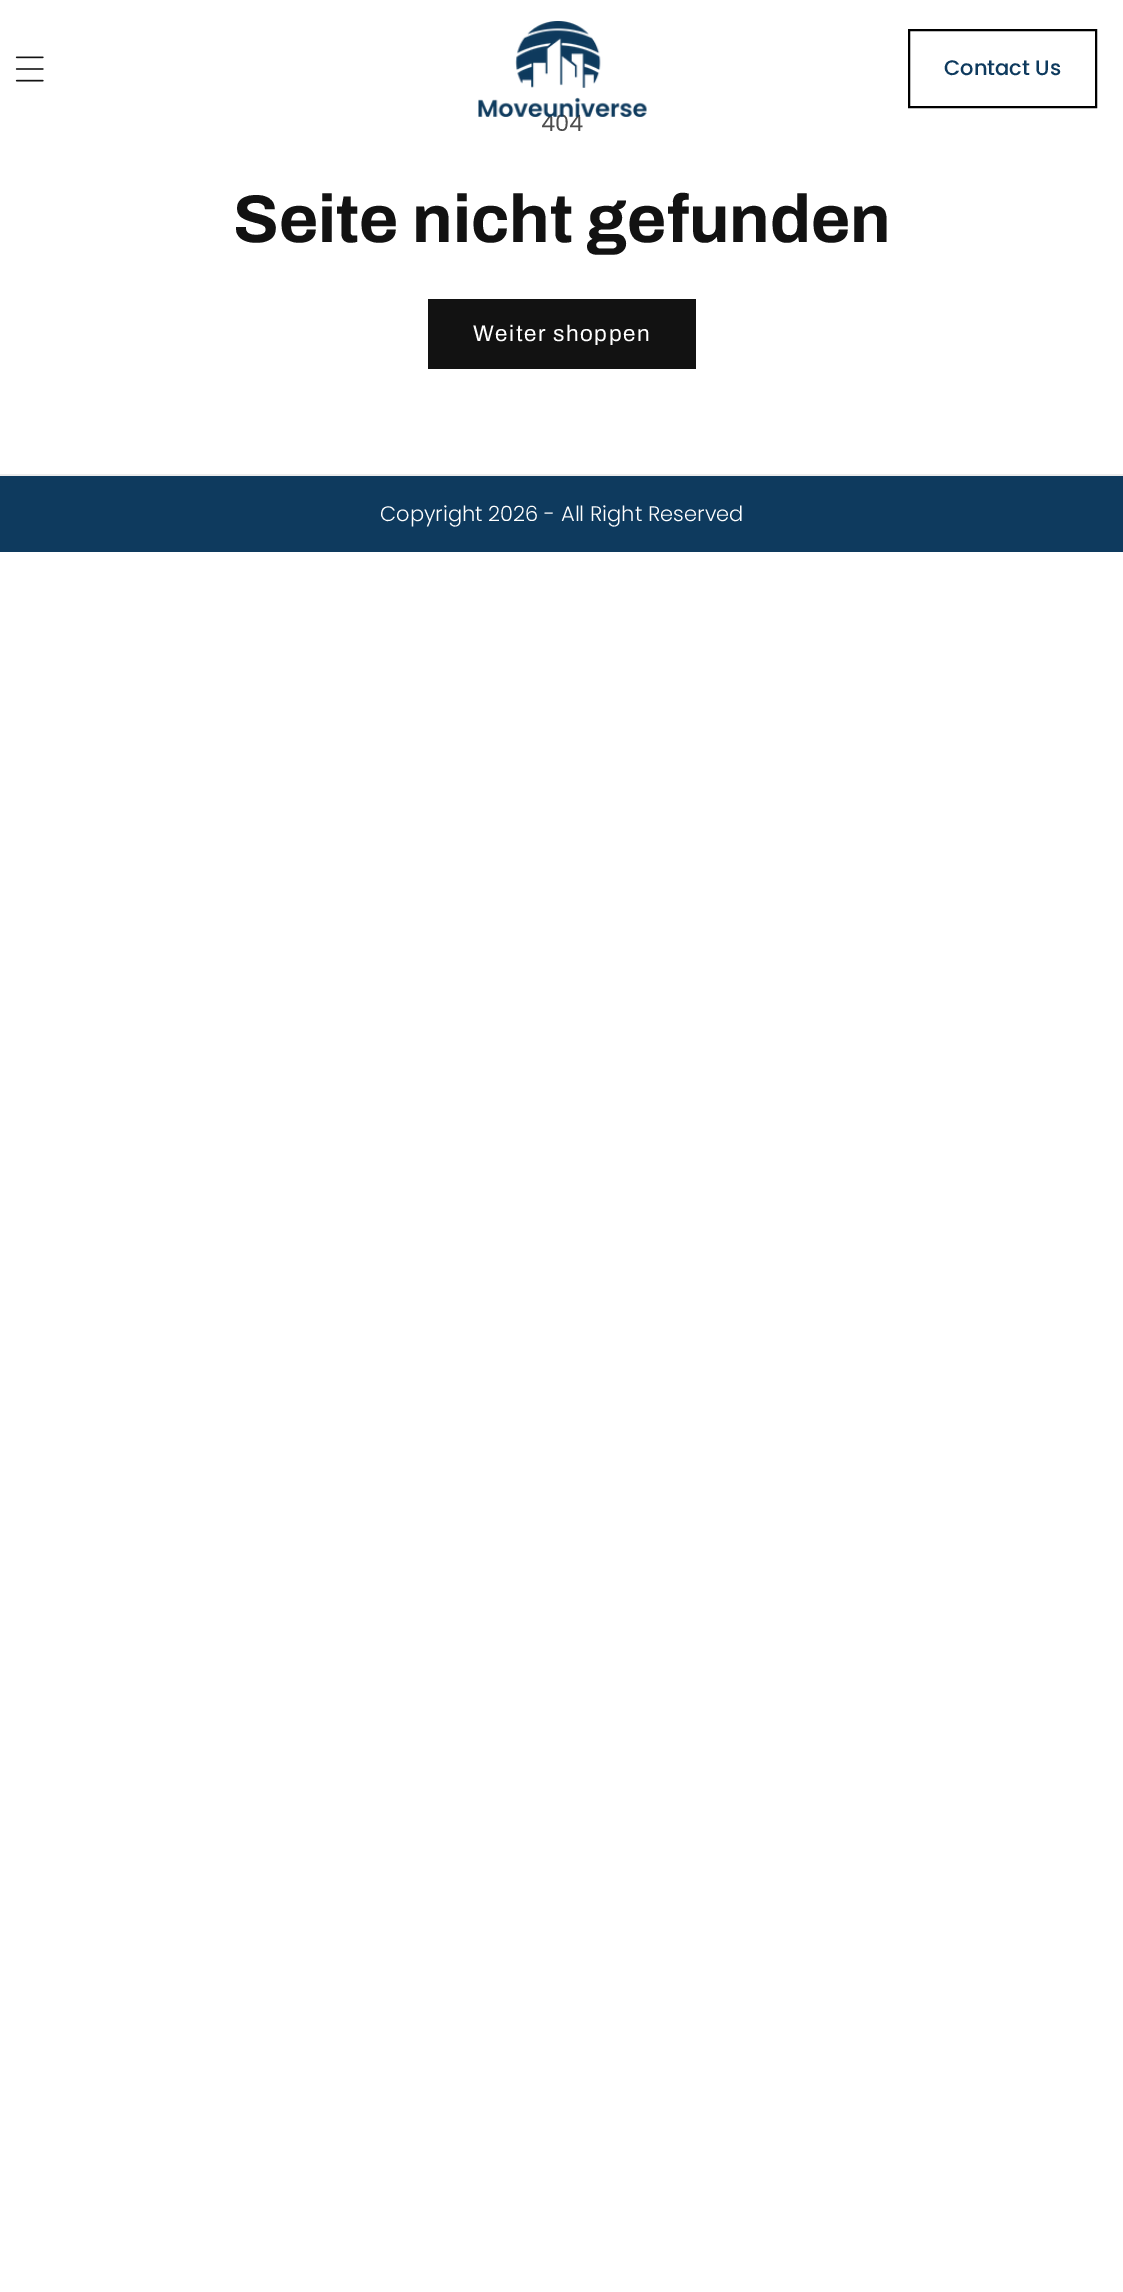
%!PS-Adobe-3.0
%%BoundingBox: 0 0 1123 2292
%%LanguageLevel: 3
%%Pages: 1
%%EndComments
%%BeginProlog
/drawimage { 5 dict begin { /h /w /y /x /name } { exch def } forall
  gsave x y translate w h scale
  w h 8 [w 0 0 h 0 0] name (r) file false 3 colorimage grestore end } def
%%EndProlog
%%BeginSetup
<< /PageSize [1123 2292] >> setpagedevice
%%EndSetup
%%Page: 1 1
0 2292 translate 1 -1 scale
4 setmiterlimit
1 setgray
0 0 1123 2292 rectfill
(images/1.raw) 15 56 29 26 drawimage
0 setgray
2 setlinewidth
909 30 187 77 rectstroke
0.071 setgray
428 299 268 70 rectfill
0.925 setgray
0 474 1123 2 rectfill
0.055 0.227 0.369 setrgbcolor
0 476 1123 76 rectfill
/Poppins-Medium [21 0 0 -21 0 0] selectfont
944 75 moveto (Contact Us) show
/Poppins-Regular [22.5 0 0 -22.5 0 0] selectfont
0.302 setgray
541 131 moveto (404) show
(images/2.raw) 478 21 169 96 drawimage
/Archivo-Bold [67.5 0 0 -67.5 0 0] selectfont
0.071 setgray
233 242 moveto (Seite nicht gefunden) show
/Archivo-Regular [22.5 0 0 -22.5 0 0] selectfont
1 setgray
473 341 moveto 1.5 0 (Weiter shoppen) ashow
/Poppins-Light [21 0 0 -21 0 0] selectfont
380 521 moveto (Copyright 2026 - All Right Reserved) show
showpage
%%EOF
